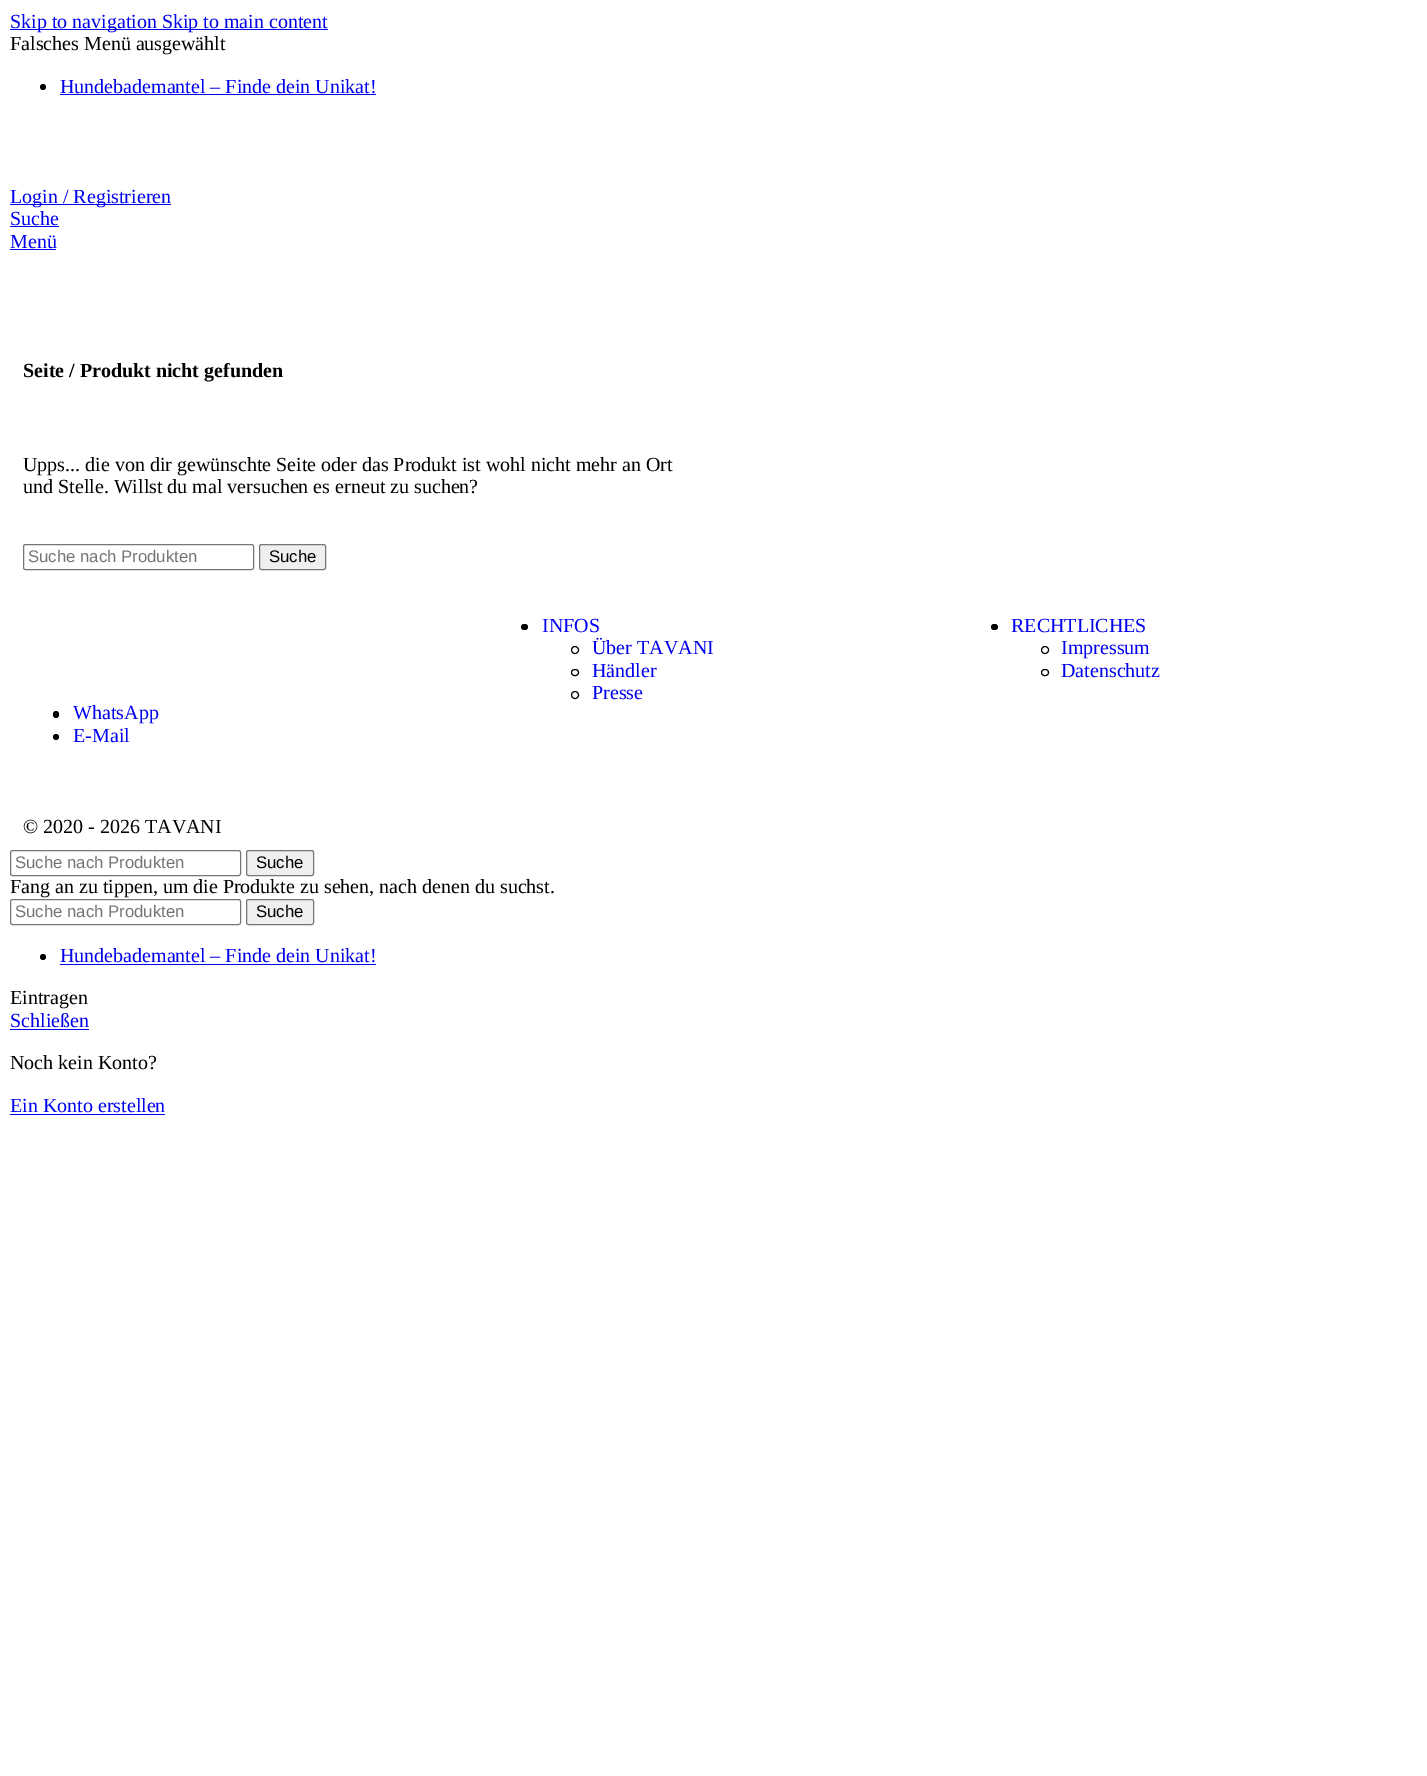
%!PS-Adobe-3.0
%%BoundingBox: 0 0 1427 1776
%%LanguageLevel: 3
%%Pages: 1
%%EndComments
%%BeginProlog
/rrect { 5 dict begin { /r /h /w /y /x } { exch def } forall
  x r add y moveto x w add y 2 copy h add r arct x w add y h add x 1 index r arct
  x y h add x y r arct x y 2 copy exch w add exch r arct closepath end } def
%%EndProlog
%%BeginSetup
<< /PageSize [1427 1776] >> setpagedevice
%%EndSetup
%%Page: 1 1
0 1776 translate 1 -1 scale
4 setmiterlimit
1 setgray
0 0 1427 1776 rectfill
0 0 0.933 setrgbcolor
10 29 318 1 rectfill
0 setgray
newpath 43 87 3 0 360 arc closepath fill
0 0 0.933 setrgbcolor
60 94 316 1 rectfill
10 204 161 1 rectfill
10 226 49 1 rectfill
10 249 46 1 rectfill
0.463 setgray
23.5 544.5 230 25 2 rrect stroke
0.937 setgray
259.5 544.5 66 25 2 rrect gsave fill grestore
0.463 setgray
stroke
0 setgray
521 624 7 6 3 rrect fill
newpath 575 650 3.5 0 360 arc closepath stroke
571.5 669.5 7 6 3 rrect stroke
newpath 575 695 3.5 0 360 arc closepath stroke
991 624 7 6 3 rrect fill
newpath 1045 650 3.5 0 360 arc closepath stroke
1041.5 669.5 7 6 3 rrect stroke
53 711 6 7 3 rrect fill
newpath 56 737 3 0 360 arc closepath fill
0.463 setgray
10.5 850.5 230 25 2 rrect stroke
0.937 setgray
246.5 850.5 67 25 2 rrect gsave fill grestore
0.463 setgray
stroke
10.5 899.5 230 25 2 rrect stroke
0.937 setgray
246.5 899.5 67 25 2 rrect gsave fill grestore
0.463 setgray
stroke
0 setgray
newpath 43 957 3 0 360 arc closepath fill
0 0 0.933 setrgbcolor
60 964 316 1 rectfill
10 1029 79 1 rectfill
10 1114 155 1 rectfill
/LiberationSerif-Regular [20 0 0 -20 0 0] selectfont
10 28 moveto (Skip to navigation Skip to main content) show
0 setgray
10 50 moveto (Falsches Menü ausgewählt) show
0 0 0.933 setrgbcolor
60 93 moveto (Hundebademantel – Finde dein Unikat!) show
10 203 moveto (Login / Registrieren) show
10 225 moveto (Suche) show
10 248 moveto (Menü) show
/LiberationSerif-Bold [20 0 0 -20 0 0] selectfont
0 setgray
23 377 moveto (Seite / Produkt nicht gefunden) show
/LiberationSerif-Regular [20 0 0 -20 0 0] selectfont
23 471 moveto (Upps... die von dir gewünschte Seite oder das Produkt ist wohl nicht mehr an Ort) show
23 493 moveto (und Stelle. Willst du mal versuchen es erneut zu suchen?) show
/LiberationSans-Regular [16.75 0 0 -16.75 0 0] selectfont
0.459 setgray
28 562 moveto (Suche nach Produkten) show
0 setgray
269 562 moveto (Suche) show
/LiberationSerif-Regular [20 0 0 -20 0 0] selectfont
0 0 0.933 setrgbcolor
542 632 moveto (INFOS) show
592 654 moveto (Über TAVANI) show
592 677 moveto (Händler) show
592 699 moveto (Presse) show
1011 632 moveto (RECHTLICHES) show
1061 654 moveto (Impressum) show
1061 677 moveto (Datenschutz) show
73 719 moveto (WhatsApp) show
73 742 moveto (E-Mail) show
0 setgray
23 833 moveto (© 2020 - 2026 TAVANI) show
/LiberationSans-Regular [16.75 0 0 -16.75 0 0] selectfont
0.459 setgray
15 868 moveto (Suche nach Produkten) show
0 setgray
256 868 moveto (Suche) show
/LiberationSerif-Regular [20 0 0 -20 0 0] selectfont
10 893 moveto (Fang an zu tippen, um die Produkte zu sehen, nach denen du suchst.) show
/LiberationSans-Regular [16.75 0 0 -16.75 0 0] selectfont
0.459 setgray
15 917 moveto (Suche nach Produkten) show
0 setgray
256 917 moveto (Suche) show
/LiberationSerif-Regular [20 0 0 -20 0 0] selectfont
0 0 0.933 setrgbcolor
60 962 moveto (Hundebademantel – Finde dein Unikat!) show
0 setgray
10 1004 moveto (Eintragen) show
0 0 0.933 setrgbcolor
10 1027 moveto (Schließen) show
0 setgray
10 1069 moveto (Noch kein Konto?) show
0 0 0.933 setrgbcolor
10 1112 moveto (Ein Konto erstellen) show
showpage
%%EOF
